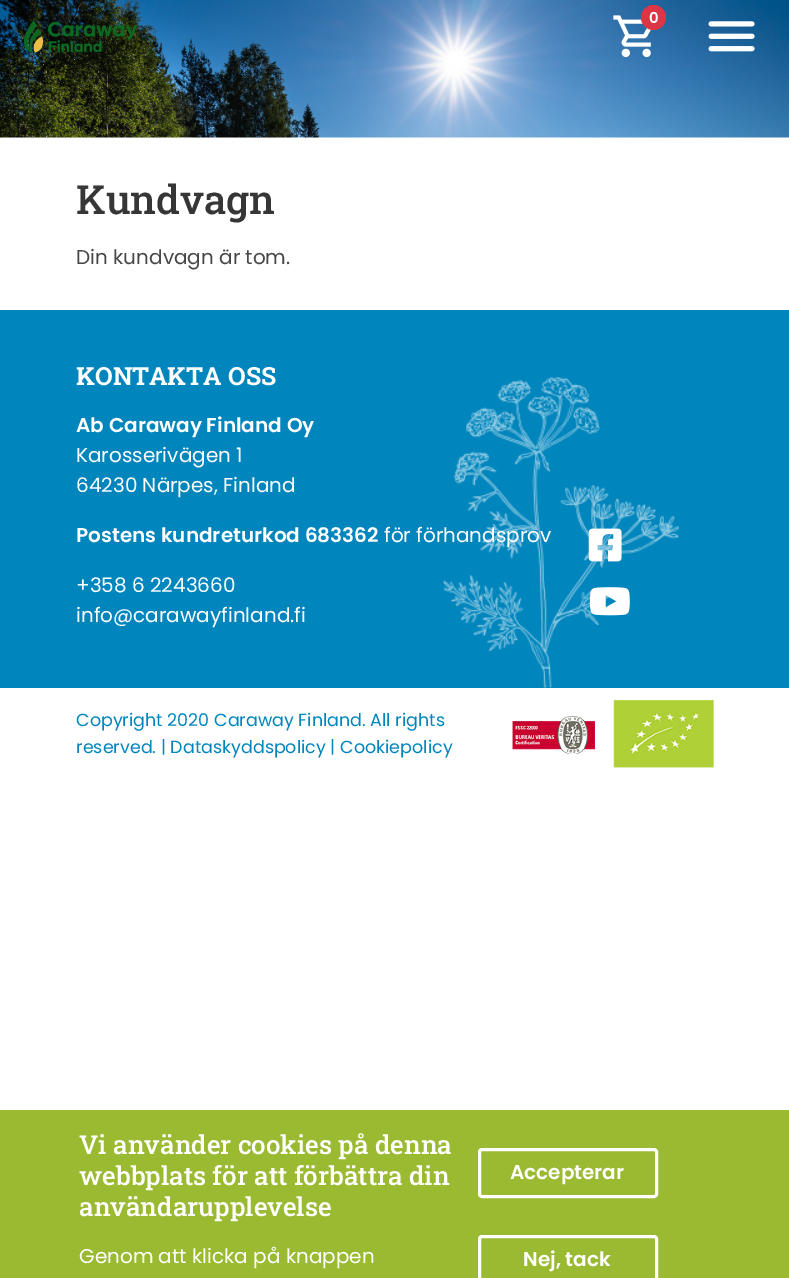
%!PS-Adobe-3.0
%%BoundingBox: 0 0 789 1278
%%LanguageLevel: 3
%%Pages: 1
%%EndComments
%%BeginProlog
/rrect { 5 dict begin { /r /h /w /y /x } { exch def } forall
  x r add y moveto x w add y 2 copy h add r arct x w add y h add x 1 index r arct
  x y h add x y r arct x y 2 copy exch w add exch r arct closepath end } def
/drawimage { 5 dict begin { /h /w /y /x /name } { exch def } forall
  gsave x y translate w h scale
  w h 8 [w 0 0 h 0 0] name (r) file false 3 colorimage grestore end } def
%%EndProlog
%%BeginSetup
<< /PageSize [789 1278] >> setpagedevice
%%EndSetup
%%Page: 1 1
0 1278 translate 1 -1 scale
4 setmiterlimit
1 setgray
0 0 789 1278 rectfill
(images/1.raw) 0 0 789 138 drawimage
(images/2.raw) 613 15 39 43 drawimage
0.863 0.208 0.271 setrgbcolor
newpath 653.5 17.5 12.5 0 360 arc closepath fill
(images/3.raw) 24 20 113 33 drawimage
(images/4.raw) 708 21 47 31 drawimage
0 0.522 0.741 setrgbcolor
0 310 789 378 rectfill
(images/5.raw) 443 377 236 311 drawimage
(images/6.raw) 588 528 34 34 drawimage
(images/7.raw) 589 587 41 29 drawimage
(images/8.raw) 512 716 83 38 drawimage
(images/9.raw) 613 700 101 68 drawimage
0.604 0.729 0.192 setrgbcolor
0 1110 789 168 rectfill
1 setgray
3 setlinewidth
479.5 1149.5 177 47 2.5 rrect stroke
479.5 1236.5 177 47 2.5 rrect stroke
/Poppins-SemiBold [15 0 0 -15 0 0] selectfont
649 23 moveto (0) show
/RobotoSlab-Medium [40 0 0 -40 0 0] selectfont
0.212 setgray
76 214 moveto (Kundvagn) show
/Poppins-Regular [20 0 0 -20 0 0] selectfont
0.278 setgray
76 264 moveto (Din kundvagn är tom.) show
/RobotoSlab-Bold [25 0 0 -25 0 0] selectfont
1 setgray
76 385 moveto (KONTAKTA OSS) show
/Poppins-SemiBold [20 0 0 -20 0 0] selectfont
76 432 moveto (Ab Caraway Finland Oy) show
/Poppins-Regular [20 0 0 -20 0 0] selectfont
76 462 moveto (Karosserivägen 1) show
76 492 moveto (64230 Närpes, Finland) show
/Poppins-SemiBold [20 0 0 -20 0 0] selectfont
76 542 moveto (Postens kundreturkod 683362) show
/Poppins-Regular [20 0 0 -20 0 0] selectfont
384 542 moveto (för förhandsprov) show
76 592 moveto (+358 6 2243660) show
76 622 moveto (info@carawayfinland.fi) show
/Poppins-Regular [17.5 0 0 -17.5 0 0] selectfont
0 0.522 0.741 setrgbcolor
76 726 moveto (Copyright 2020 Caraway Finland. All rights) show
76 753 moveto (reserved. | Dataskyddspolicy | Cookiepolicy) show
/RobotoSlab-Medium [26 0 0 -26 0 0] selectfont
1 setgray
79 1154 moveto (Vi använder cookies på denna) show
79 1185 moveto (webbplats för att förbättra din) show
79 1216 moveto (användarupplevelse) show
/Poppins-Regular [20 0 0 -20 0 0] selectfont
79 1263 moveto (Genom att klicka på knappen) show
/Poppins-SemiBold [20 0 0 -20 0 0] selectfont
510 1179 moveto (Accepterar) show
523 1266 moveto (Nej, tack) show
showpage
%%EOF
